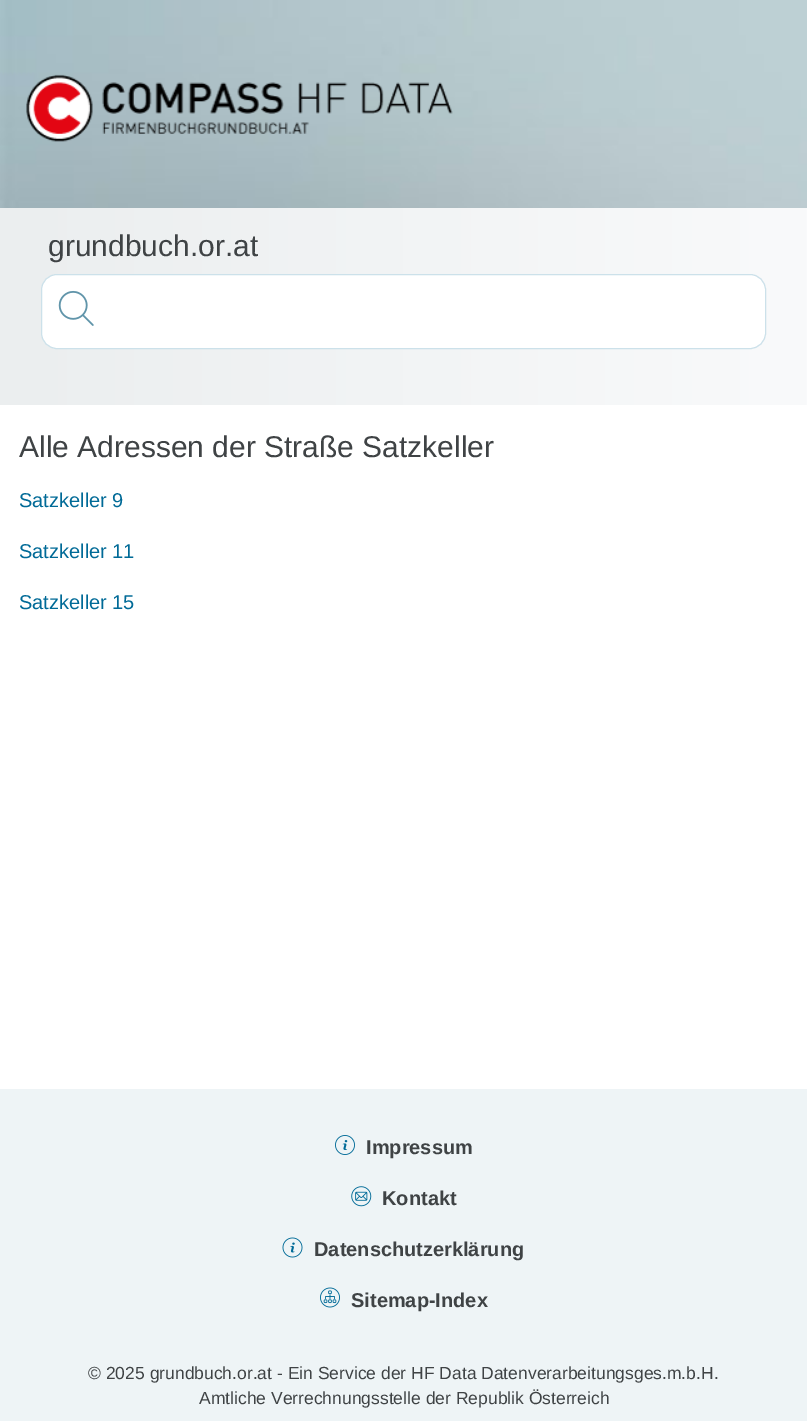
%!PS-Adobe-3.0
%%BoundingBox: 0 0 807 1421
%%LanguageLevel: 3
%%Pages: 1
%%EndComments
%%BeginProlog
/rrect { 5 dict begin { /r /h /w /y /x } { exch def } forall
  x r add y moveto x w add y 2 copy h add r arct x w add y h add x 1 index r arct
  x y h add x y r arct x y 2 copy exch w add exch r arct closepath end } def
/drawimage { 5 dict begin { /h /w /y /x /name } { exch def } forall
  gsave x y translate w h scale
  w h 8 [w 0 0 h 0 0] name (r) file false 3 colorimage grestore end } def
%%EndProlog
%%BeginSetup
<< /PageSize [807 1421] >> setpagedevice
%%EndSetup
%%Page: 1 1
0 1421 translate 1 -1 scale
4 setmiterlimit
1 setgray
0 0 807 1421 rectfill
(images/1.raw) 0 0 807 208 drawimage
(images/2.raw) 26 74 427 68 drawimage
gsave newpath 0 208 moveto 807 208 lineto 807 405 lineto 0 405 lineto closepath clip newpath
<< /ShadingType 2 /ColorSpace /DeviceRGB /Coords [0 306 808 306] /Extend [true true] /Function << /FunctionType 2 /Domain [0 1] /C0 [0.922 0.933 0.937] /C1 [0.976 0.98 0.984] /N 1 >> >> shfill grestore
41.5 274.5 724 74 15.5 rrect gsave fill grestore
0.8 0.882 0.918 setrgbcolor
stroke
(images/3.raw) 58 290 36 36 drawimage
0.933 0.957 0.965 setrgbcolor
0 1089 807 332 rectfill
(images/4.raw) 335 1135 20 20 drawimage
(images/5.raw) 351 1186 21 21 drawimage
(images/6.raw) 282 1237 21 21 drawimage
(images/7.raw) 320 1287 20 21 drawimage
/LiberationSans-Regular [30 0 0 -30 0 0] selectfont
0.247 0.263 0.271 setrgbcolor
48 256 moveto (grundbuch.or.at) show
19 457 moveto (Alle Adressen der Straße Satzkeller) show
/LiberationSans-Regular [20 0 0 -20 0 0] selectfont
0 0.416 0.592 setrgbcolor
19 507 moveto (Satzkeller 9) show
19 558 moveto (Satzkeller 11) show
19 609 moveto (Satzkeller 15) show
/LiberationSans-Bold [20 0 0 -20 0 0] selectfont
0.247 0.263 0.271 setrgbcolor
366 1154 moveto (Impressum) show
382 1205 moveto (Kontakt) show
314 1256 moveto (Datenschutzerklärung) show
351 1307 moveto (Sitemap-Index) show
/LiberationSans-Regular [17.5 0 0 -17.5 0 0] selectfont
88 1379 moveto (© 2025 grundbuch.or.at - Ein Service der HF Data Datenverarbeitungsges.m.b.H.) show
199 1404 moveto (Amtliche Verrechnungsstelle der Republik Österreich) show
showpage
%%EOF
